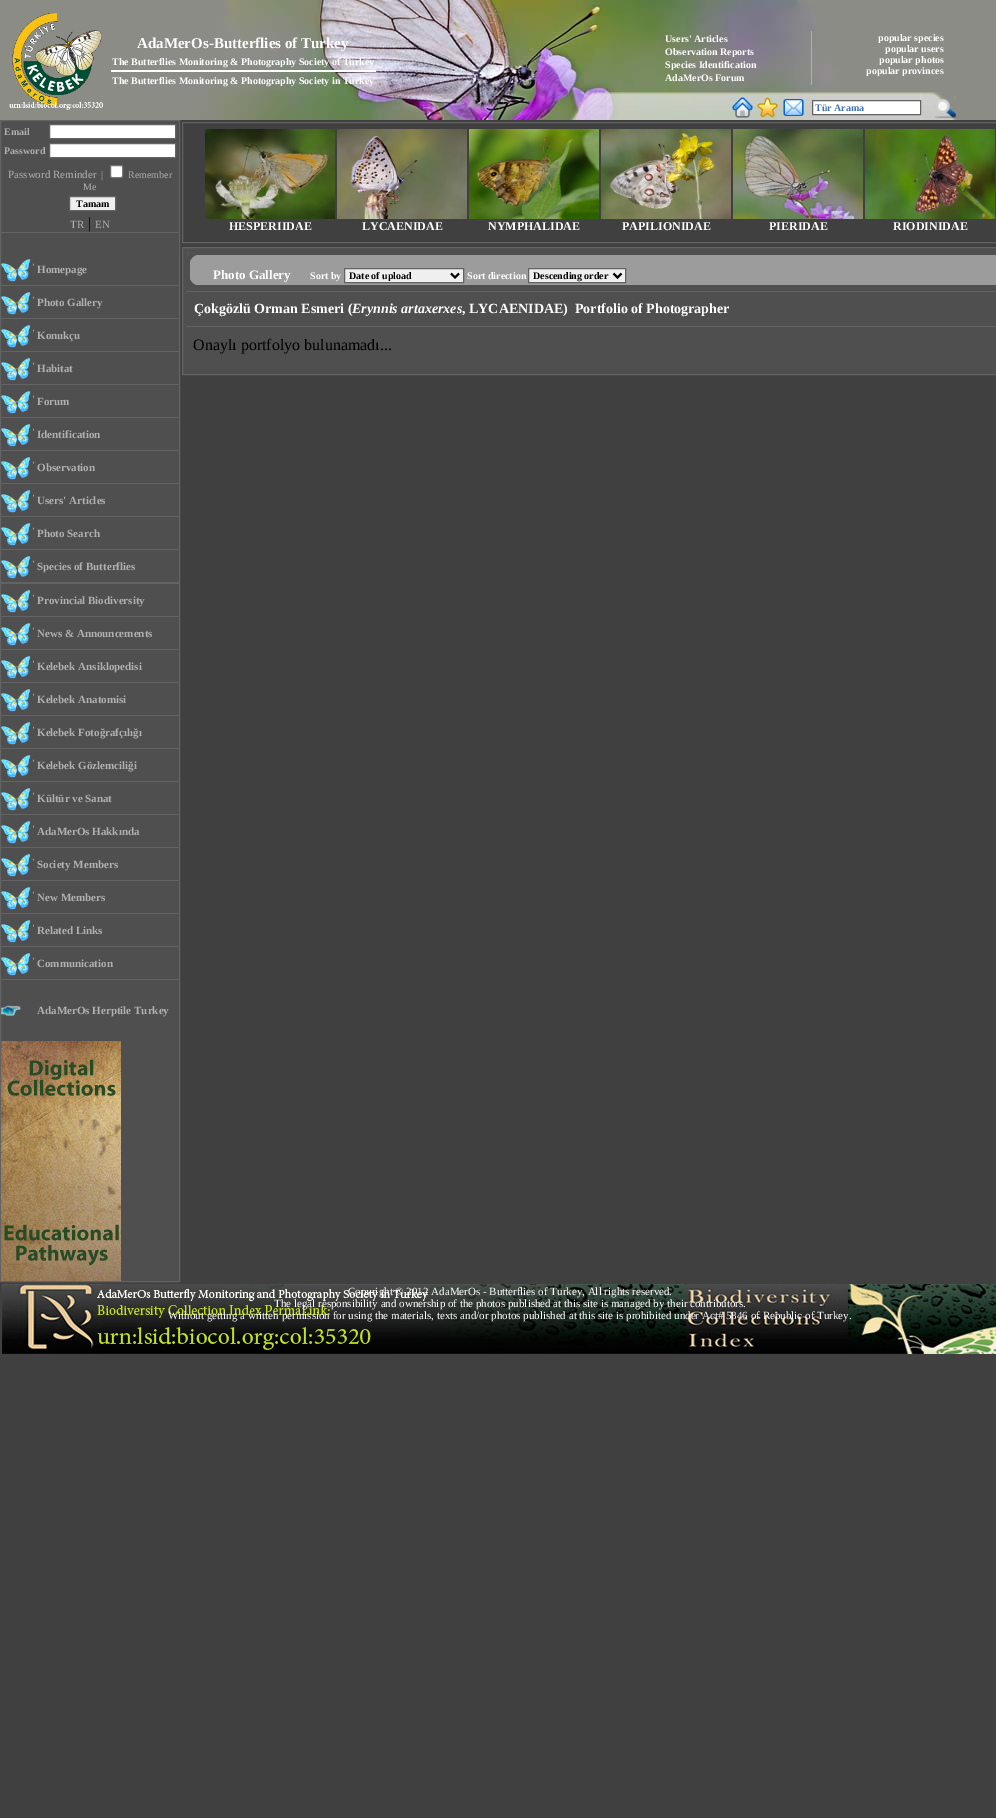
%!PS-Adobe-3.0
%%BoundingBox: 0 0 996 1818
%%LanguageLevel: 3
%%Pages: 1
%%EndComments
%%BeginProlog
/rrect { 5 dict begin { /r /h /w /y /x } { exch def } forall
  x r add y moveto x w add y 2 copy h add r arct x w add y h add x 1 index r arct
  x y h add x y r arct x y 2 copy exch w add exch r arct closepath end } def
/drawimage { 5 dict begin { /h /w /y /x /name } { exch def } forall
  gsave x y translate w h scale
  w h 8 [w 0 0 h 0 0] name (r) file false 3 colorimage grestore end } def
%%EndProlog
%%BeginSetup
<< /PageSize [996 1818] >> setpagedevice
%%EndSetup
%%Page: 1 1
0 1818 translate 1 -1 scale
4 setmiterlimit
0.251 setgray
0 0 996 1818 rectfill
(images/1.raw) 0 0 996 120 drawimage
(images/2.raw) 9 13 94 97 drawimage
1 setgray
111 70 265 2 rectfill
0.69 setgray
811 31 1 54 rectfill
(images/3.raw) 569 92 388 28 drawimage
(images/4.raw) 732 97 21 21 drawimage
(images/5.raw) 757 97 21 21 drawimage
(images/6.raw) 783 99 21 17 drawimage
1 setgray
newpath 812.5 100.5 moveto 920.5 100.5 lineto 920.5 114.5 lineto 812.5 114.5 lineto closepath gsave fill grestore
0.388 setgray
stroke
(images/7.raw) 934 98 23 21 drawimage
0.31 setgray
newpath 0.5 120.5 moveto 179.5 120.5 lineto 179.5 1281.5 lineto 0.5 1281.5 lineto closepath gsave fill grestore
0.388 setgray
stroke
1 setgray
newpath 49.5 124.5 moveto 175.5 124.5 lineto 175.5 138.5 lineto 49.5 138.5 lineto closepath gsave fill grestore
0.388 setgray
stroke
1 setgray
newpath 49.5 143.5 moveto 175.5 143.5 lineto 175.5 157.5 lineto 49.5 157.5 lineto closepath gsave fill grestore
0.388 setgray
stroke
1 setgray
110.5 165.5 12 12 1.5 rrect gsave fill grestore
0.463 setgray
stroke
0.937 setgray
newpath 69.5 196.5 moveto 115.5 196.5 lineto 115.5 210.5 lineto 69.5 210.5 lineto closepath gsave fill grestore
0.388 setgray
stroke
1 232 178 1 rectfill
(images/8.raw) 1 259 33 23 drawimage
1 285 178 1 rectfill
(images/8.raw) 1 292 33 23 drawimage
1 318 178 1 rectfill
(images/8.raw) 1 325 33 23 drawimage
1 351 178 1 rectfill
(images/8.raw) 1 358 33 23 drawimage
1 384 178 1 rectfill
(images/8.raw) 1 391 33 23 drawimage
1 417 178 1 rectfill
(images/8.raw) 1 424 33 23 drawimage
1 450 178 1 rectfill
(images/8.raw) 1 457 33 23 drawimage
1 483 178 1 rectfill
(images/8.raw) 1 490 33 23 drawimage
1 516 178 1 rectfill
(images/8.raw) 1 523 33 23 drawimage
1 549 178 1 rectfill
(images/8.raw) 1 556 33 23 drawimage
1 582 178 2 rectfill
(images/8.raw) 1 590 33 23 drawimage
1 616 178 1 rectfill
(images/8.raw) 1 623 33 23 drawimage
1 649 178 1 rectfill
(images/8.raw) 1 656 33 23 drawimage
1 682 178 1 rectfill
(images/8.raw) 1 689 33 23 drawimage
1 715 178 1 rectfill
(images/8.raw) 1 722 33 23 drawimage
1 748 178 1 rectfill
(images/8.raw) 1 755 33 23 drawimage
1 781 178 1 rectfill
(images/8.raw) 1 788 33 23 drawimage
1 814 178 1 rectfill
(images/8.raw) 1 821 33 23 drawimage
1 847 178 1 rectfill
(images/8.raw) 1 854 33 23 drawimage
1 880 178 1 rectfill
(images/8.raw) 1 887 33 23 drawimage
1 913 178 1 rectfill
(images/8.raw) 1 920 33 23 drawimage
1 946 178 1 rectfill
(images/8.raw) 1 953 33 23 drawimage
1 979 178 1 rectfill
(images/9.raw) 1 1005 20 11 drawimage
(images/10.raw) 1 1041 120 240 drawimage
182.5 122.5 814 120 rectstroke
(images/11.raw) 205 129 130 90 drawimage
(images/12.raw) 337 129 130 90 drawimage
(images/13.raw) 469 129 130 90 drawimage
(images/14.raw) 601 129 130 90 drawimage
(images/15.raw) 733 129 130 90 drawimage
(images/16.raw) 865 129 130 90 drawimage
0.31 setgray
newpath 182.5 247.5 moveto 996.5 247.5 lineto 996.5 374.5 lineto 182.5 374.5 lineto closepath gsave fill grestore
0.388 setgray
stroke
(images/17.raw) 187 252 809 33 drawimage
0.937 setgray
newpath 344.5 268.5 moveto 463.5 268.5 lineto 463.5 282.5 lineto 344.5 282.5 lineto closepath gsave fill grestore
0.388 setgray
stroke
0 setgray
2 setlinewidth
newpath 451 273.5 moveto 455 277.5 lineto 459 273.5 lineto stroke
0.937 setgray
newpath 528.5 268.5 moveto 625.5 268.5 lineto 625.5 282.5 lineto 528.5 282.5 lineto closepath gsave fill grestore
0.388 setgray
1 setlinewidth
stroke
0 setgray
2 setlinewidth
newpath 613.5 273.5 moveto 617.5 277.5 lineto 621.5 273.5 lineto stroke
0.388 setgray
186 291 810 1 rectfill
186 326 810 1 rectfill
(images/18.raw) 2 1284 994 70 drawimage
/LiberationSerif-Bold [15 0 0 -15 0 0] selectfont
1 setgray
137 48 moveto (AdaMerOs-Butterflies of Turkey) show
/LiberationSerif-Bold [10 0 0 -10 0 0] selectfont
112 65 moveto (The Butterflies Monitoring & Photography Society of Turkey) show
112 84 moveto (The Butterflies Monitoring & Photography Society in Turkey) show
665 42 moveto (Users' Articles) show
665 55 moveto (Observation Reports) show
665 68 moveto (Species Identification) show
665 81 moveto (AdaMerOs Forum) show
878 41 moveto (popular species) show
885 52 moveto (popular users) show
879 63 moveto (popular photos) show
866 74 moveto (popular provinces) show
0.267 0.455 0.71 setrgbcolor
815 111 moveto (Tür Arama) show
0.69 setgray
4 135 moveto (Email) show
4 154 moveto (Password) show
/LiberationSerif-Regular [11 0 0 -11 0 0] selectfont
8 178 moveto (Password Reminder) show
/LiberationSerif-Regular [10 0 0 -10 0 0] selectfont
101 178 moveto (|) show
128 178 moveto (Remember) show
83 190 moveto (Me) show
/LiberationSerif-Bold [10 0 0 -10 0 0] selectfont
0 setgray
76 207 moveto (Tamam) show
/LiberationSerif-Regular [11 0 0 -11 0 0] selectfont
0.69 setgray
70 228 moveto (TR) show
/LiberationSerif-Regular [16 0 0 -16 0 0] selectfont
0 setgray
88 228 moveto (|) show
/LiberationSerif-Regular [11 0 0 -11 0 0] selectfont
0.69 setgray
95 228 moveto (EN) show
/LiberationSerif-Bold [11 0 0 -11 0 0] selectfont
37 273 moveto (Homepage) show
37 306 moveto (Photo Gallery) show
37 339 moveto (Konukçu) show
37 372 moveto (Habitat) show
37 405 moveto (Forum) show
37 438 moveto (Identification) show
37 471 moveto (Observation) show
37 504 moveto (Users' Articles) show
37 537 moveto (Photo Search) show
37 570 moveto (Species of Butterflies) show
37 604 moveto (Provincial Biodiversity) show
37 637 moveto (News & Announcements) show
37 670 moveto (Kelebek Ansiklopedisi) show
37 703 moveto (Kelebek Anatomisi) show
37 736 moveto (Kelebek Fotoğrafçılığı) show
37 769 moveto (Kelebek Gözlemciliği) show
37 802 moveto (Kültür ve Sanat) show
37 835 moveto (AdaMerOs Hakkında) show
37 868 moveto (Society Members) show
37 901 moveto (New Members) show
37 934 moveto (Related Links) show
37 967 moveto (Communication) show
37 1014 moveto (AdaMerOs Herptile Turkey) show
/LiberationSerif-Bold [12 0 0 -12 0 0] selectfont
1 setgray
229 230 moveto (HESPERIIDAE) show
362 230 moveto (LYCAENIDAE) show
488 230 moveto (NYMPHALIDAE) show
622 230 moveto (PAPILIONIDAE) show
769 230 moveto (PIERIDAE) show
893 230 moveto (RIODINIDAE) show
/LiberationSerif-Bold [13 0 0 -13 0 0] selectfont
213 279 moveto (Photo Gallery) show
/LiberationSerif-Bold [10 0 0 -10 0 0] selectfont
310 279 moveto (Sort by) show
0 setgray
349 279 moveto (Date of upload) show
1 setgray
467 279 moveto (Sort direction) show
0 setgray
533 279 moveto (Descending order) show
/LiberationSerif-Bold [14 0 0 -14 0 0] selectfont
1 setgray
194 313 moveto (Çokgözlü Orman Esmeri \() show
/LiberationSerif-BoldItalic [14 0 0 -14 0 0] selectfont
352 313 moveto (Erynnis artaxerxes) show
/LiberationSerif-Bold [14 0 0 -14 0 0] selectfont
462 313 moveto (, LYCAENIDAE\)  Portfolio of Photographer) show
/LiberationSerif-Regular [16 0 0 -16 0 0] selectfont
0 setgray
193 350 moveto (Onaylı portfolyo bulunamadı...) show
/LiberationSerif-Regular [11 0 0 -11 0 0] selectfont
1 setgray
348 1295 moveto (Copyright © 2012 AdaMerOs - Butterflies of Turkey, All rights reserved.) show
274 1307 moveto (The legal responsibility and ownership of the photos published at this site is managed by their contributors.) show
168 1319 moveto (Without getting a written permission for using the materials, texts and/or photos published at this site is prohibited under Act# 5846 of Republic of Turkey.) show
showpage
%%EOF
